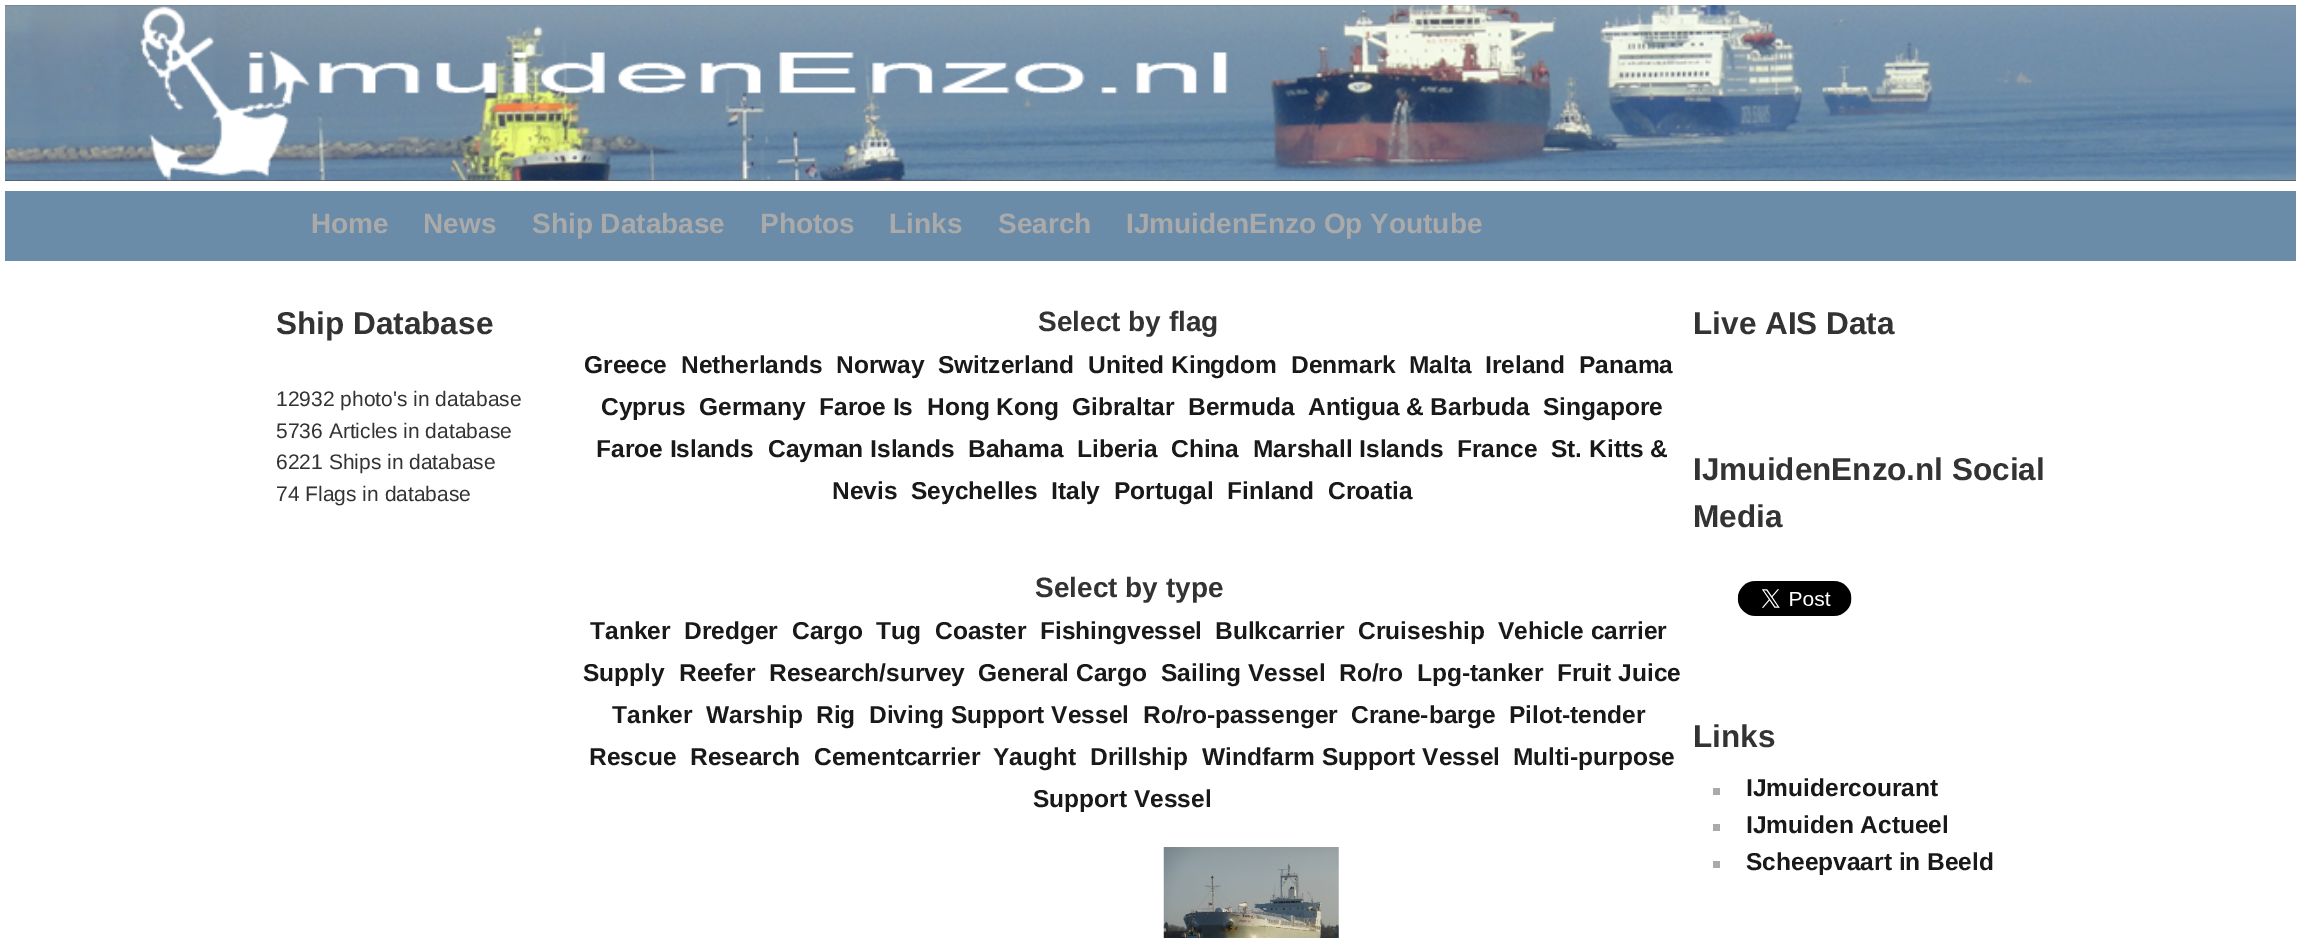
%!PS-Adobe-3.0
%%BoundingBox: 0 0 2300 938
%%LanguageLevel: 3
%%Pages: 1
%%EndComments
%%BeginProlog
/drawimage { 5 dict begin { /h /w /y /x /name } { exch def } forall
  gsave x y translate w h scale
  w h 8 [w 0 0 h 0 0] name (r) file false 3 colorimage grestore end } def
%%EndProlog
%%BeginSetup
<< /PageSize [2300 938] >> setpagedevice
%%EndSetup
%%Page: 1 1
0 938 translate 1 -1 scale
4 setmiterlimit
1 setgray
0 0 2300 938 rectfill
0.333 setgray
5 5 2291 176 rectfill
(images/1.raw) 5 5 2291 176 drawimage
0.416 0.549 0.663 setrgbcolor
5 191 2291 70 rectfill
(images/2.raw) 1163 847 176 91 drawimage
(images/3.raw) 1737 581 115 35 drawimage
0.667 setgray
1713 788 7 7 rectfill
1713 824 7 7 rectfill
1713 861 7 7 rectfill
/LiberationSans-Bold [28 0 0 -28 0 0] selectfont
311 233 moveto (Home) show
423 233 moveto (News) show
532 233 moveto (Ship Database) show
760 233 moveto (Photos) show
889 233 moveto (Links) show
998 233 moveto (Search) show
1126 233 moveto (IJmuidenEnzo Op Youtube) show
/LiberationSans-Bold [31.5 0 0 -31.5 0 0] selectfont
0.2 setgray
276 334 moveto (Ship Database) show
/LiberationSans-Regular [21 0 0 -21 0 0] selectfont
276 406 moveto (12932 photo's in database) show
gsave
277 284 1855 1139 rectclip
276 438 moveto (5736 Articles in database) show
276 469 moveto (6221 Ships in database) show
grestore
276 501 moveto (74 Flags in database) show
/LiberationSans-Bold [28 0 0 -28 0 0] selectfont
1038 331 moveto (Select by flag) show
/LiberationSans-Bold [24.5 0 0 -24.5 0 0] selectfont
0.098 setgray
584 373 moveto (Greece) show
681 373 moveto (Netherlands) show
836 373 moveto (Norway) show
938 373 moveto (Switzerland) show
1088 373 moveto (United Kingdom) show
1291 373 moveto (Denmark) show
1409 373 moveto (Malta) show
1485 373 moveto (Ireland) show
1579 373 moveto (Panama) show
601 415 moveto (Cyprus) show
699 415 moveto (Germany) show
819 415 moveto (Faroe Is) show
927 415 moveto (Hong Kong) show
1072 415 moveto (Gibraltar) show
1188 415 moveto (Bermuda) show
1308 415 moveto (Antigua & Barbuda) show
1543 415 moveto (Singapore) show
596 457 moveto (Faroe Islands) show
768 457 moveto (Cayman Islands) show
968 457 moveto (Bahama) show
1077 457 moveto (Liberia) show
1171 457 moveto (China) show
1253 457 moveto (Marshall Islands) show
1457 457 moveto (France) show
1551 457 moveto (St. Kitts &) show
832 499 moveto (Nevis) show
911 499 moveto (Seychelles) show
1051 499 moveto (Italy) show
1114 499 moveto (Portugal) show
1227 499 moveto (Finland) show
1328 499 moveto (Croatia) show
/LiberationSans-Bold [28 0 0 -28 0 0] selectfont
0.2 setgray
1035 597 moveto (Select by type) show
/LiberationSans-Bold [24.5 0 0 -24.5 0 0] selectfont
0.098 setgray
590 639 moveto (Tanker) show
684 639 moveto (Dredger) show
792 639 moveto (Cargo) show
876 639 moveto (Tug) show
935 639 moveto (Coaster) show
1040 639 moveto (Fishingvessel) show
1215 639 moveto (Bulkcarrier) show
1358 639 moveto (Cruiseship) show
1498 639 moveto (Vehicle carrier) show
583 681 moveto (Supply) show
679 681 moveto (Reefer) show
769 681 moveto (Research/survey) show
978 681 moveto (General Cargo) show
1161 681 moveto (Sailing Vessel) show
1339 681 moveto (Ro/ro) show
1417 681 moveto (Lpg-tanker) show
1557 681 moveto (Fruit Juice) show
612 723 moveto (Tanker) show
706 723 moveto (Warship) show
816 723 moveto (Rig) show
869 723 moveto (Diving Support Vessel) show
1143 723 moveto (Ro/ro-passenger) show
1351 723 moveto (Crane-barge) show
1509 723 moveto (Pilot-tender) show
589 765 moveto (Rescue) show
690 765 moveto (Research) show
814 765 moveto (Cementcarrier) show
993 765 moveto (Yaught) show
1090 765 moveto (Drillship) show
1202 765 moveto (Windfarm Support Vessel) show
1513 765 moveto (Multi-purpose) show
1033 807 moveto (Support Vessel) show
/LiberationSans-Bold [31.5 0 0 -31.5 0 0] selectfont
0.2 setgray
1693 334 moveto (Live AIS Data) show
1693 480 moveto (IJmuidenEnzo.nl Social) show
1693 527 moveto (Media) show
1693 747 moveto (Links) show
/LiberationSans-Bold [24.5 0 0 -24.5 0 0] selectfont
0.098 setgray
1746 796 moveto (IJmuidercourant) show
1746 833 moveto (IJmuiden Actueel) show
1746 870 moveto (Scheepvaart in Beeld) show
showpage
%%EOF
